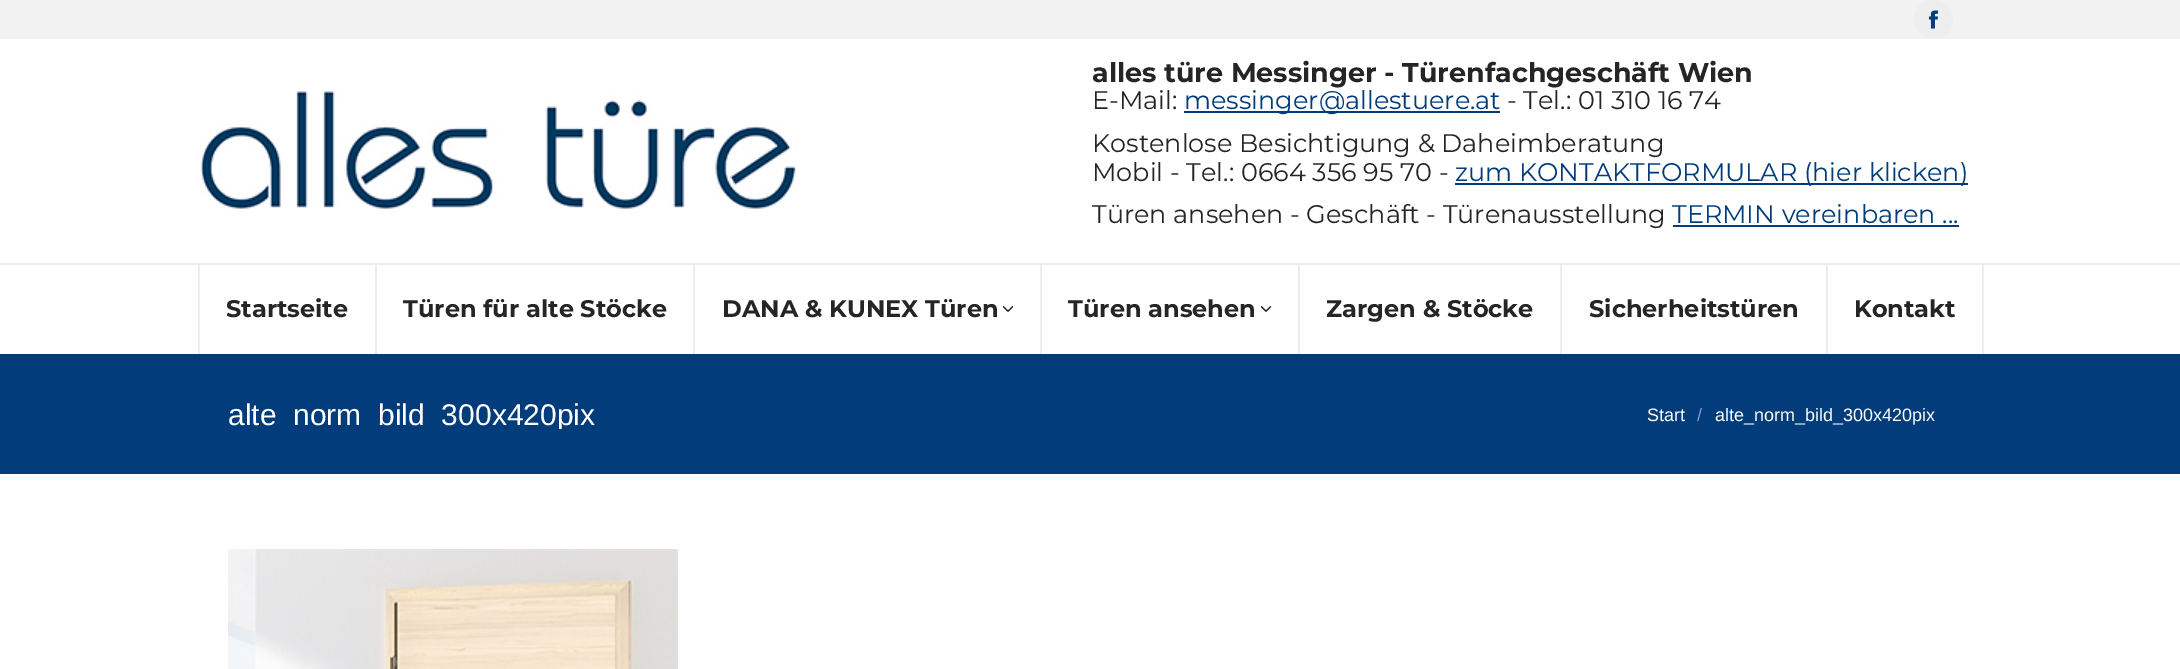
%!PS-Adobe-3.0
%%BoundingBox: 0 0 2180 669
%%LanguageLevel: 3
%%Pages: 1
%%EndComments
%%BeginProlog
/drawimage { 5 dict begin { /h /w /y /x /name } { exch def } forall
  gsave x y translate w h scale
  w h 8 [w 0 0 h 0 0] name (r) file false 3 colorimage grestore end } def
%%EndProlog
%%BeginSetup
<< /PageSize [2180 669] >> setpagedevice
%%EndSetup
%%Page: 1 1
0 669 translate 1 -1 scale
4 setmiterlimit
1 setgray
0 0 2180 669 rectfill
0.949 setgray
0 0 2180 39 rectfill
0.929 0.933 0.933 setrgbcolor
newpath 1933.5 19.5 19.5 0 360 arc closepath fill
(images/1.raw) 1928 10 11 19 drawimage
(images/2.raw) 200 91 598 118 drawimage
0.012 0.235 0.482 setrgbcolor
1184 111 316 2 rectfill
1455 183 513 2 rectfill
1673 225 286 2 rectfill
0.929 setgray
0 263 2180 2 rectfill
198 264 2 90 rectfill
375 264 2 90 rectfill
693 264 2 90 rectfill
(images/3.raw) 1002 306 12 6 drawimage
1040 264 2 90 rectfill
(images/3.raw) 1260 306 12 6 drawimage
1298 264 2 90 rectfill
1560 264 2 90 rectfill
1826 264 2 90 rectfill
1982 264 2 90 rectfill
0.012 0.235 0.482 setrgbcolor
0 354 2180 120 rectfill
(images/4.raw) 228 549 450 120 drawimage
/Montserrat-Bold [27 0 0 -27 0 0] selectfont
0.145 setgray
1092 82 moveto (alles türe Messinger - Türenfachgeschäft Wien) show
/Montserrat-Regular [25.5 0 0 -25.5 0 0] selectfont
1092 109 moveto (E-Mail:) show
0.012 0.235 0.482 setrgbcolor
1184 109 moveto (messinger@allestuere.at) show
0.145 setgray
1507 109 moveto (- Tel.: 01 310 16 74) show
1092 152 moveto (Kostenlose Besichtigung & Daheimberatung) show
1092 181 moveto (Mobil - Tel.: 0664 356 95 70 -) show
0.012 0.235 0.482 setrgbcolor
1455 181 moveto (zum KONTAKTFORMULAR \(hier klicken\)) show
0.145 setgray
1092 223 moveto (Türen ansehen - Geschäft - Türenausstellung) show
0.012 0.235 0.482 setrgbcolor
1672 223 moveto (TERMIN vereinbaren ...) show
/Montserrat-Bold [24 0 0 -24 0 0] selectfont
0.145 setgray
226 317 moveto (Startseite) show
403 317 moveto (Türen für alte Stöcke) show
722 317 moveto (DANA & KUNEX Türen) show
1068 317 moveto (Türen ansehen) show
1326 317 moveto (Zargen & Stöcke) show
1589 317 moveto (Sicherheitstüren) show
1854 317 moveto (Kontakt) show
gsave
228 399 368 30 rectclip
/LiberationSans-Regular [30 0 0 -30 0 0] selectfont
1 setgray
228 425 moveto (alte_norm_bild_300x420pix) show
grestore
/LiberationSans-Regular [18 0 0 -18 0 0] selectfont
1 setgray
1647 421 moveto (Start) show
0.506 0.62 0.741 setrgbcolor
1697 421 moveto (/) show
1 setgray
1715 421 moveto (alte_norm_bild_300x420pix) show
showpage
%%EOF
